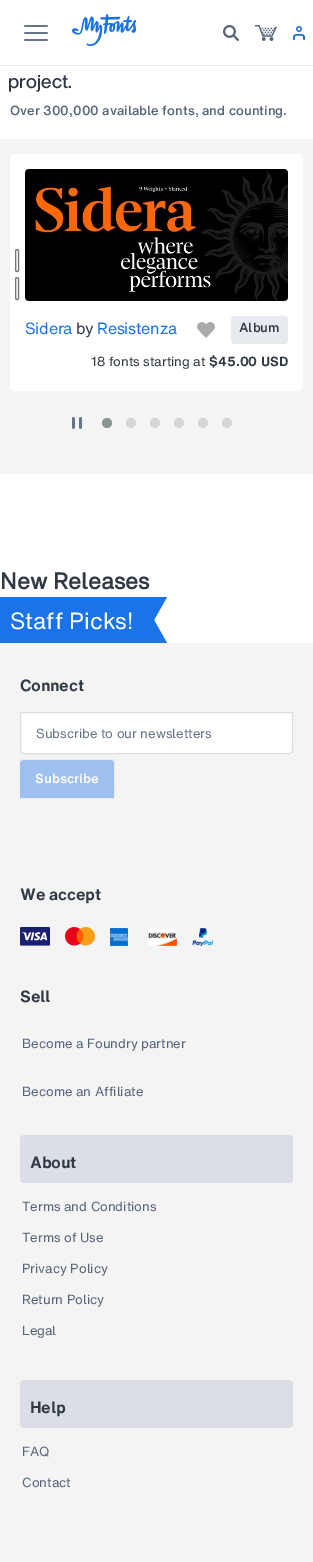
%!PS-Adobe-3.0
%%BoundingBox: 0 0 313 1562
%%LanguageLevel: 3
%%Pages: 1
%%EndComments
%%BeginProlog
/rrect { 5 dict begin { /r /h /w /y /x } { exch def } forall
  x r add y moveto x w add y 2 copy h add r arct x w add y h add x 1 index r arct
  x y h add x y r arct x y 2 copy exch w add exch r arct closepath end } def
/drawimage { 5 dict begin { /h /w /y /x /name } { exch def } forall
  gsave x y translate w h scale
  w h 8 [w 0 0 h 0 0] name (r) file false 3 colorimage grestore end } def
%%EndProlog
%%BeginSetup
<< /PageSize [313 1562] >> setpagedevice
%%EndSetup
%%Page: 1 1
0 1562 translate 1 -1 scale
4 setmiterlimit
1 setgray
0 0 313 1562 rectfill
0.906 0.918 0.933 setrgbcolor
0 65 313 1 rectfill
(images/1.raw) 24 25 24 16 drawimage
(images/2.raw) 72 14 65 32 drawimage
(images/3.raw) 223 25 16 16 drawimage
(images/4.raw) 255 25 22 16 drawimage
(images/5.raw) 293 26 12 14 drawimage
0.957 setgray
0 139 313 335 rectfill
1 setgray
10 154 293 237 5 rrect fill
0.937 setgray
15.5 249.5 3 22 1.5 rrect gsave fill grestore
0.463 setgray
stroke
0.937 setgray
15.5 277.5 3 22 1.5 rrect gsave fill grestore
0.463 setgray
stroke
(images/6.raw) 25 169 263 132 drawimage
(images/7.raw) 197 322 18 16 drawimage
0.906 0.918 0.933 setrgbcolor
231 316 57 28 4 rrect fill
(images/8.raw) 72 417 10 12 drawimage
0.525 0.592 0.569 setrgbcolor
newpath 107 423 5 0 360 arc closepath fill
0.839 setgray
newpath 131 423 5 0 360 arc closepath fill
newpath 155 423 5 0 360 arc closepath fill
newpath 179 423 5 0 360 arc closepath fill
newpath 203 423 5 0 360 arc closepath fill
newpath 227 423 5 0 360 arc closepath fill
0.102 0.451 0.91 setrgbcolor
0 597 154 46 rectfill
newpath 154 597 moveto 167 597 lineto 154 620 lineto closepath 167 643 moveto 154 643 lineto 154 620 lineto closepath fill
0.957 setgray
0 643 313 919 rectfill
1 setgray
newpath 20.5 712.5 moveto 292.5 712.5 lineto 292.5 750 lineto 292.5 752 291 753.5 289 753.5 curveto 24 753.5 lineto 22 753.5 20.5 752 20.5 750 curveto closepath gsave fill grestore
0.875 0.871 0.871 setrgbcolor
stroke
0.616 0.753 0.937 setrgbcolor
newpath 24 759 moveto 111 759 lineto 113 759 115 761 115 763 curveto 115 799 lineto 20 799 lineto 20 763 lineto 20 761 22 759 24 759 curveto closepath fill
0.925 0.922 0.922 setrgbcolor
newpath 24 759 moveto 111 759 lineto 113 759 115 761 115 763 curveto 115 799 lineto 20 799 lineto 20 763 lineto 20 761 22 759 24 759 curveto closepath 24 760 moveto 111 760 lineto 113 760 114 761 114 763 curveto 114 798 lineto 20 798 lineto 20 763 lineto 20 761 22 760 24 760 curveto closepath eofill
(images/9.raw) 20 927 30 19 drawimage
(images/10.raw) 65 927 30 19 drawimage
(images/11.raw) 110 928 18 18 drawimage
(images/12.raw) 148 928 29 18 drawimage
(images/13.raw) 192 928 21 18 drawimage
0.859 0.875 0.898 setrgbcolor
20 1135 273 48 4 rrect fill
20 1380 273 48 4 rrect fill
/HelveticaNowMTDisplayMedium-Medium [19 0 0 -19 0 0] selectfont
0.192 0.224 0.271 setrgbcolor
8 88 moveto (project.) show
/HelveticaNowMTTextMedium-Medium [13 0 0 -13 0 0] selectfont
0.341 0.396 0.475 setrgbcolor
10 115 moveto (Over 300,000 available fonts, and counting.) show
/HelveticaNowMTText-Regular [16 0 0 -16 0 0] selectfont
0.102 0.451 0.91 setrgbcolor
25 334 moveto -0.25 0 (Sidera) ashow
0.192 0.224 0.271 setrgbcolor
76 334 moveto -0.25 0 (by) ashow
0.102 0.451 0.91 setrgbcolor
97 334 moveto -0.25 0 (Resistenza) ashow
/HelveticaNowMTTextMedium-Medium [13 0 0 -13 0 0] selectfont
0.192 0.224 0.271 setrgbcolor
239 332 moveto (Album) show
/HelveticaNowMTText-Regular [13 0 0 -13 0 0] selectfont
91 366 moveto (18 fonts starting at) show
/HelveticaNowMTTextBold-Bold [13 0 0 -13 0 0] selectfont
209 366 moveto ($45.00 USD) show
/HelveticaNowMTText-Bold [22.5 0 0 -22.5 0 0] selectfont
0 589 moveto (New Releases) show
/HelveticaNowMTText-Regular [23 0 0 -23 0 0] selectfont
1 setgray
10 629 moveto (Staff Picks!) show
/HelveticaNowMTTextBold-Bold [16 0 0 -16 0 0] selectfont
0.192 0.224 0.271 setrgbcolor
20 691 moveto -0.25 0 (Connect) ashow
/HelveticaNowMTText-Regular [13 0 0 -13 0 0] selectfont
0.4 0.455 0.533 setrgbcolor
36 738 moveto (Subscribe to our newsletters) show
/HelveticaNowMTTextBold-Bold [13 0 0 -13 0 0] selectfont
0.973 setgray
35 783 moveto (Subscribe) show
/HelveticaNowMTTextBold-Bold [16 0 0 -16 0 0] selectfont
0.192 0.224 0.271 setrgbcolor
20 900 moveto -0.25 0 (We accept) ashow
20 1002 moveto -0.25 0 (Sell) ashow
/HelveticaNowMTText-Regular [13 0 0 -13 0 0] selectfont
0.341 0.396 0.475 setrgbcolor
22 1048 moveto (Become a Foundry partner) show
22 1096 moveto (Become an Affiliate) show
/HelveticaNowMTTextBold-Bold [16 0 0 -16 0 0] selectfont
0.192 0.224 0.271 setrgbcolor
30 1168 moveto -0.25 0 (About) ashow
/HelveticaNowMTText-Regular [13 0 0 -13 0 0] selectfont
0.341 0.396 0.475 setrgbcolor
22 1211 moveto (Terms and Conditions) show
22 1242 moveto (Terms of Use) show
22 1273 moveto (Privacy Policy) show
22 1304 moveto (Return Policy) show
22 1335 moveto (Legal) show
/HelveticaNowMTTextBold-Bold [16 0 0 -16 0 0] selectfont
0.192 0.224 0.271 setrgbcolor
30 1413 moveto -0.25 0 (Help) ashow
/HelveticaNowMTText-Regular [13 0 0 -13 0 0] selectfont
0.341 0.396 0.475 setrgbcolor
22 1456 moveto (FAQ) show
22 1487 moveto (Contact) show
showpage
%%EOF
